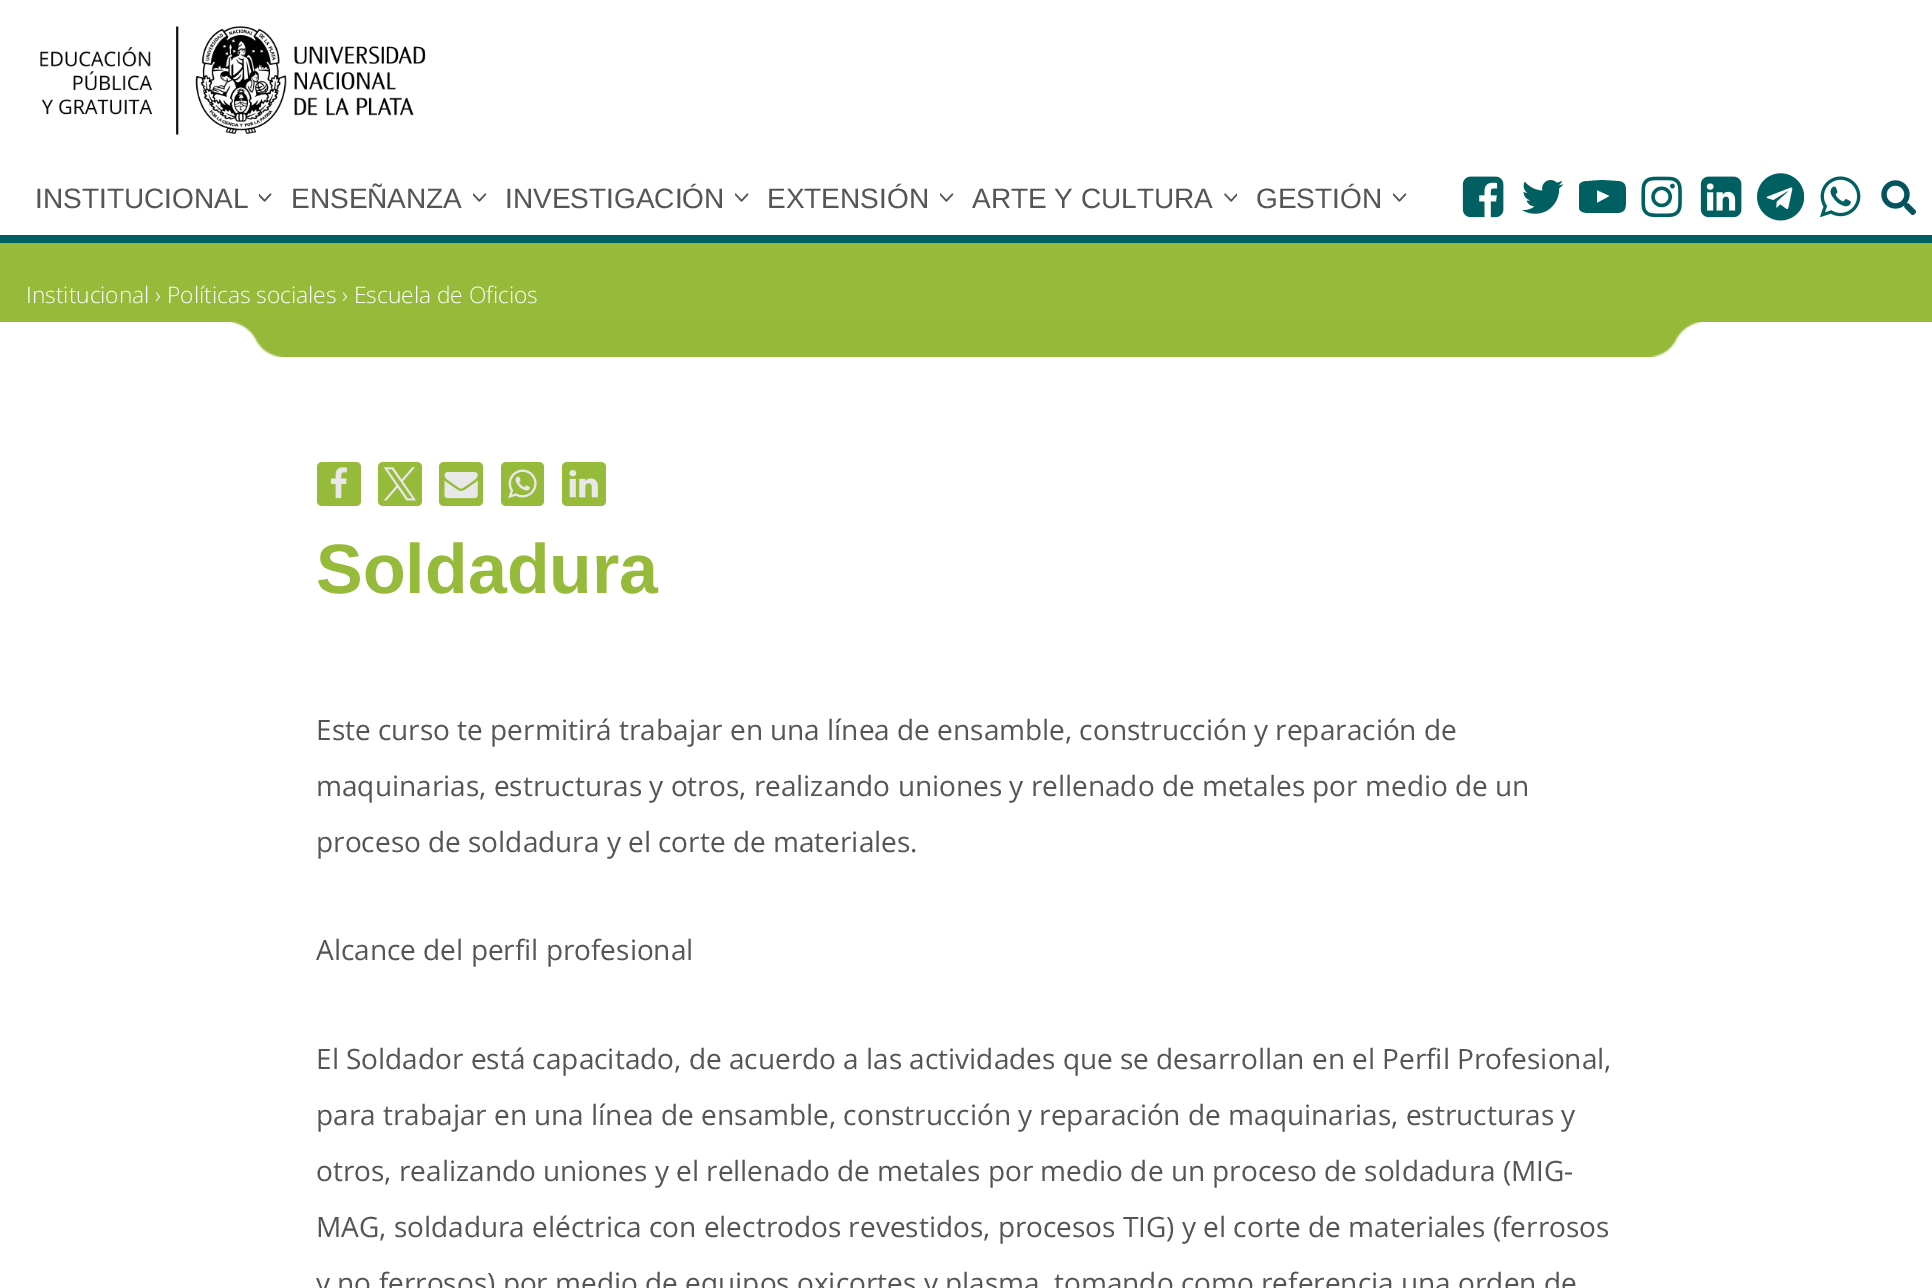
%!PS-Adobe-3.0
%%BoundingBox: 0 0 1932 1288
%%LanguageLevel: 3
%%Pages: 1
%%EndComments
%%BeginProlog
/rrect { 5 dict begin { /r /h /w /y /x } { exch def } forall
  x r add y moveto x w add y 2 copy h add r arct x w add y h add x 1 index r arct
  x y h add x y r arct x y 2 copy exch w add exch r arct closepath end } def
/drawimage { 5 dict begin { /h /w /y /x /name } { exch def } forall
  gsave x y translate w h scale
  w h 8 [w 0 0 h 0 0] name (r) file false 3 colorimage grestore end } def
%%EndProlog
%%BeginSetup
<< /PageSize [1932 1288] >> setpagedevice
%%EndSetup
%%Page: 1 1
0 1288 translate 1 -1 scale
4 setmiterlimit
1 setgray
0 0 1932 1288 rectfill
(images/1.raw) 40 26 386 109 drawimage
(images/2.raw) 259 193 13 9 drawimage
(images/3.raw) 473 193 14 9 drawimage
(images/4.raw) 735 193 14 9 drawimage
(images/5.raw) 940 193 14 9 drawimage
(images/6.raw) 1224 193 13 9 drawimage
(images/7.raw) 1393 193 14 9 drawimage
(images/8.raw) 1462 176 42 42 drawimage
(images/9.raw) 1522 180 42 34 drawimage
gsave
1579 173 47 48 rectclip
0 0.373 0.38 setrgbcolor
newpath 1597 203 moveto 1610 196 lineto 1597 190 lineto closepath 1602 180 moveto 1616 181 lineto 1627 181 1626 187 1626 197 curveto 1626 209 1626 213 1615 213 curveto 1589 213 lineto 1577 213 1578 207 1578 197 curveto 1578 185 1578 181 1589 181 curveto closepath fill
grestore
(images/10.raw) 1641 176 41 42 drawimage
(images/11.raw) 1700 176 42 42 drawimage
(images/12.raw) 1757 173 47 48 drawimage
(images/13.raw) 1820 176 41 42 drawimage
(images/14.raw) 1881 180 35 35 drawimage
0.588 0.729 0.227 setrgbcolor
0 243 1932 79 rectfill
0 0.373 0.38 setrgbcolor
0 235 1932 8 rectfill
(images/15.raw) 230 322 1472 35 drawimage
0.588 0.729 0.227 setrgbcolor
317 462 44 44 5 rrect fill
(images/16.raw) 330 467 17 32 drawimage
378 462 44 44 5 rrect fill
(images/17.raw) 383 467 33 34 drawimage
439 462 44 44 5 rrect fill
(images/18.raw) 444 472 34 27 drawimage
501 462 43 44 5 rrect fill
(images/19.raw) 508 469 29 30 drawimage
562 462 44 44 5 rrect fill
(images/20.raw) 569 470 29 28 drawimage
/LiberationSans-Regular [28 0 0 -28 0 0] selectfont
0.333 setgray
35 208 moveto (INSTITUCIONAL) show
291 208 moveto (ENSEÑANZA) show
505 208 moveto (INVESTIGACIÓN) show
767 208 moveto (EXTENSIÓN) show
972 208 moveto (ARTE Y CULTURA) show
1256 208 moveto (GESTIÓN) show
/OpenSans-Light [22.75 0 0 -22.75 0 0] selectfont
1 setgray
26 303 moveto (Institucional › Políticas sociales › Escuela de Oficios) show
/LiberationSans-Bold [70 0 0 -70 0 0] selectfont
0.588 0.729 0.227 setrgbcolor
316 593 moveto (Soldadura) show
/OpenSans-Regular [28 0 0 -28 0 0] selectfont
0.333 setgray
316 740 moveto (Este curso te permitirá trabajar en una línea de ensamble, construcción y reparación de) show
316 796 moveto (maquinarias, estructuras y otros, realizando uniones y rellenado de metales por medio de un) show
316 852 moveto (proceso de soldadura y el corte de materiales.) show
316 960 moveto (Alcance del perfil profesional) show
316 1069 moveto (El Soldador está capacitado, de acuerdo a las actividades que se desarrollan en el Perfil Profesional,) show
316 1125 moveto (para trabajar en una línea de ensamble, construcción y reparación de maquinarias, estructuras y) show
316 1181 moveto (otros, realizando uniones y el rellenado de metales por medio de un proceso de soldadura \(MIG-) show
316 1237 moveto (MAG, soldadura eléctrica con electrodos revestidos, procesos TIG\) y el corte de materiales \(ferrosos) show
316 1293 moveto (y no ferrosos\) por medio de equipos oxicortes y plasma, tomando como referencia una orden de) show
showpage
%%EOF
